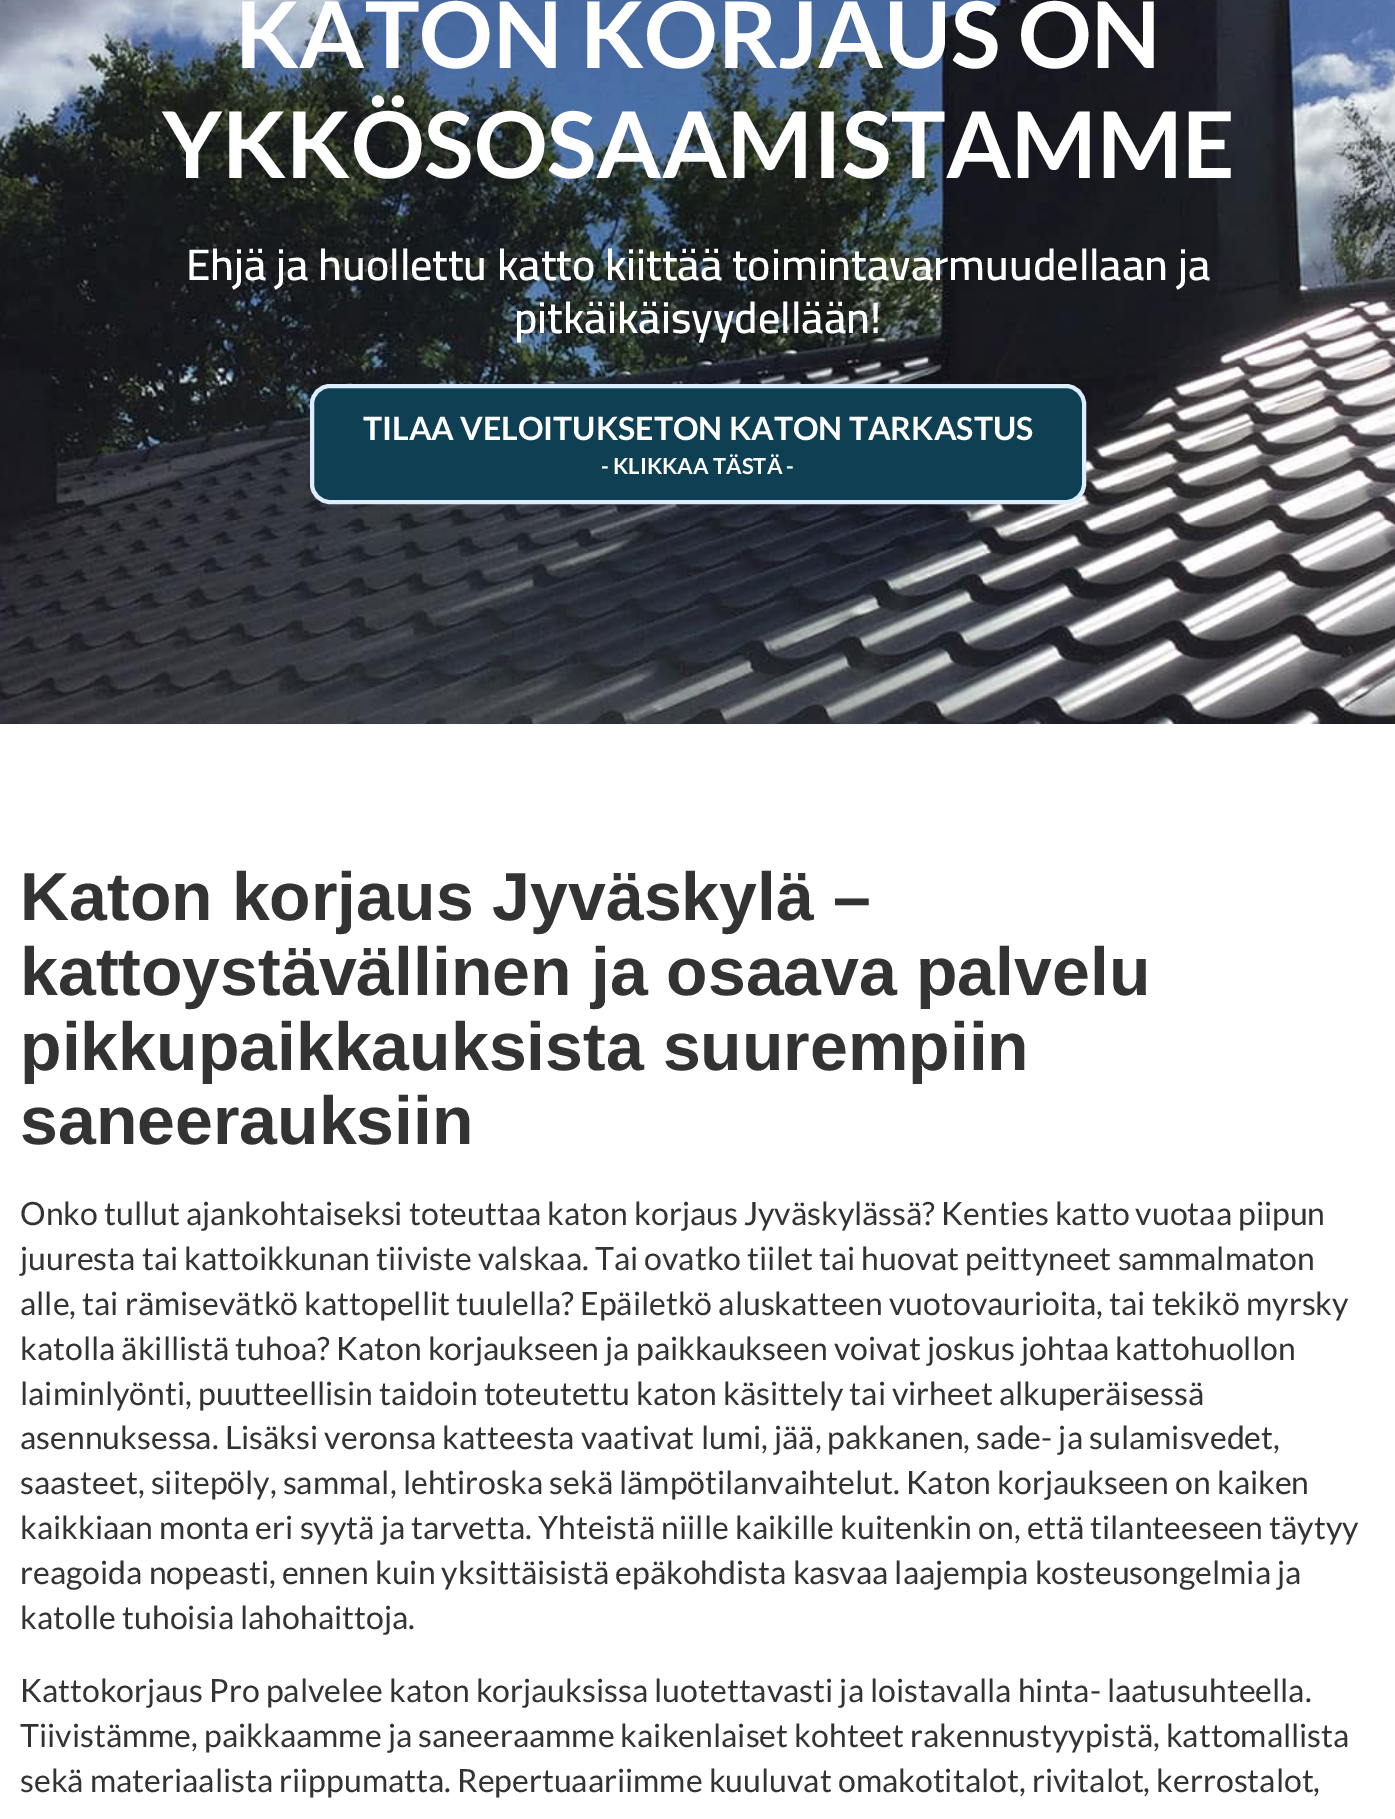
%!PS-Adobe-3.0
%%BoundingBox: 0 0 1395 1819
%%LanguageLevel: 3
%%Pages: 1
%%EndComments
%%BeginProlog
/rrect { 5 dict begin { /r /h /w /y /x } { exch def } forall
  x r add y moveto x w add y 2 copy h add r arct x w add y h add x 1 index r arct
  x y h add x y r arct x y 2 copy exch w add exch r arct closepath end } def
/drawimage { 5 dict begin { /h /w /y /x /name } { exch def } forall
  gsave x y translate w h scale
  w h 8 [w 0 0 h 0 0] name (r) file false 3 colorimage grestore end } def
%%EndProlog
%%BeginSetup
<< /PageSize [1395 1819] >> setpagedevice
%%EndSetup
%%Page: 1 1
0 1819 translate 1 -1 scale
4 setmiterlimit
1 setgray
0 0 1395 1819 rectfill
(images/1.raw) 0 0 1395 724 drawimage
0.055 0.247 0.325 setrgbcolor
312 386 772 116 18 rrect gsave fill grestore
0.867 0.933 1 setrgbcolor
4 setlinewidth
stroke
/Lato-Bold [92 0 0 -92 0 0] selectfont
1 setgray
235 68 moveto (KATON KORJAUS ON) show
162 178 moveto (YKKÖSOSAAMISTAMME) show
/Cairo-SemiBold [44 0 0 -44 0 0] selectfont
186 280 moveto (Ehjä ja huollettu katto kiittää toimintavarmuudellaan ja) show
514 333 moveto (pitkäikäisyydellään!) show
/Lato-Bold [32 0 0 -32 0 0] selectfont
363 440 moveto (TILAA VELOITUKSETON KATON TARKASTUS) show
/Lato-Bold [22 0 0 -22 0 0] selectfont
601 474 moveto (- KLIKKAA TÄSTÄ -) show
/LiberationSans-Bold [68 0 0 -68 0 0] selectfont
0.2 setgray
20 920 moveto (Katon korjaus Jyväskylä –) show
20 995 moveto (kattoystävällinen ja osaava palvelu) show
20 1070 moveto (pikkupaikkauksista suurempiin) show
20 1144 moveto (saneerauksiin) show
/Lato-Regular [32 0 0 -32 0 0] selectfont
20 1225 moveto (Onko tullut ajankohtaiseksi toteuttaa katon korjaus Jyväskylässä? Kenties katto vuotaa piipun) show
20 1270 moveto (juuresta tai kattoikkunan tiiviste valskaa. Tai ovatko tiilet tai huovat peittyneet sammalmaton) show
20 1315 moveto (alle, tai rämisevätkö kattopellit tuulella? Epäiletkö aluskatteen vuotovaurioita, tai tekikö myrsky) show
20 1360 moveto (katolla äkillistä tuhoa? Katon korjaukseen ja paikkaukseen voivat joskus johtaa kattohuollon) show
20 1405 moveto (laiminlyönti, puutteellisin taidoin toteutettu katon käsittely tai virheet alkuperäisessä) show
20 1449 moveto (asennuksessa. Lisäksi veronsa katteesta vaativat lumi, jää, pakkanen, sade- ja sulamisvedet,) show
20 1494 moveto (saasteet, siitepöly, sammal, lehtiroska sekä lämpötilanvaihtelut. Katon korjaukseen on kaiken) show
20 1539 moveto (kaikkiaan monta eri syytä ja tarvetta. Yhteistä niille kaikille kuitenkin on, että tilanteeseen täytyy) show
20 1584 moveto (reagoida nopeasti, ennen kuin yksittäisistä epäkohdista kasvaa laajempia kosteusongelmia ja) show
20 1629 moveto (katolle tuhoisia lahohaittoja.) show
20 1702 moveto (Kattokorjaus Pro palvelee katon korjauksissa luotettavasti ja loistavalla hinta- laatusuhteella.) show
20 1747 moveto (Tiivistämme, paikkaamme ja saneeraamme kaikenlaiset kohteet rakennustyypistä, kattomallista) show
20 1792 moveto (sekä materiaalista riippumatta. Repertuaariimme kuuluvat omakotitalot, rivitalot, kerrostalot,) show
showpage
%%EOF
